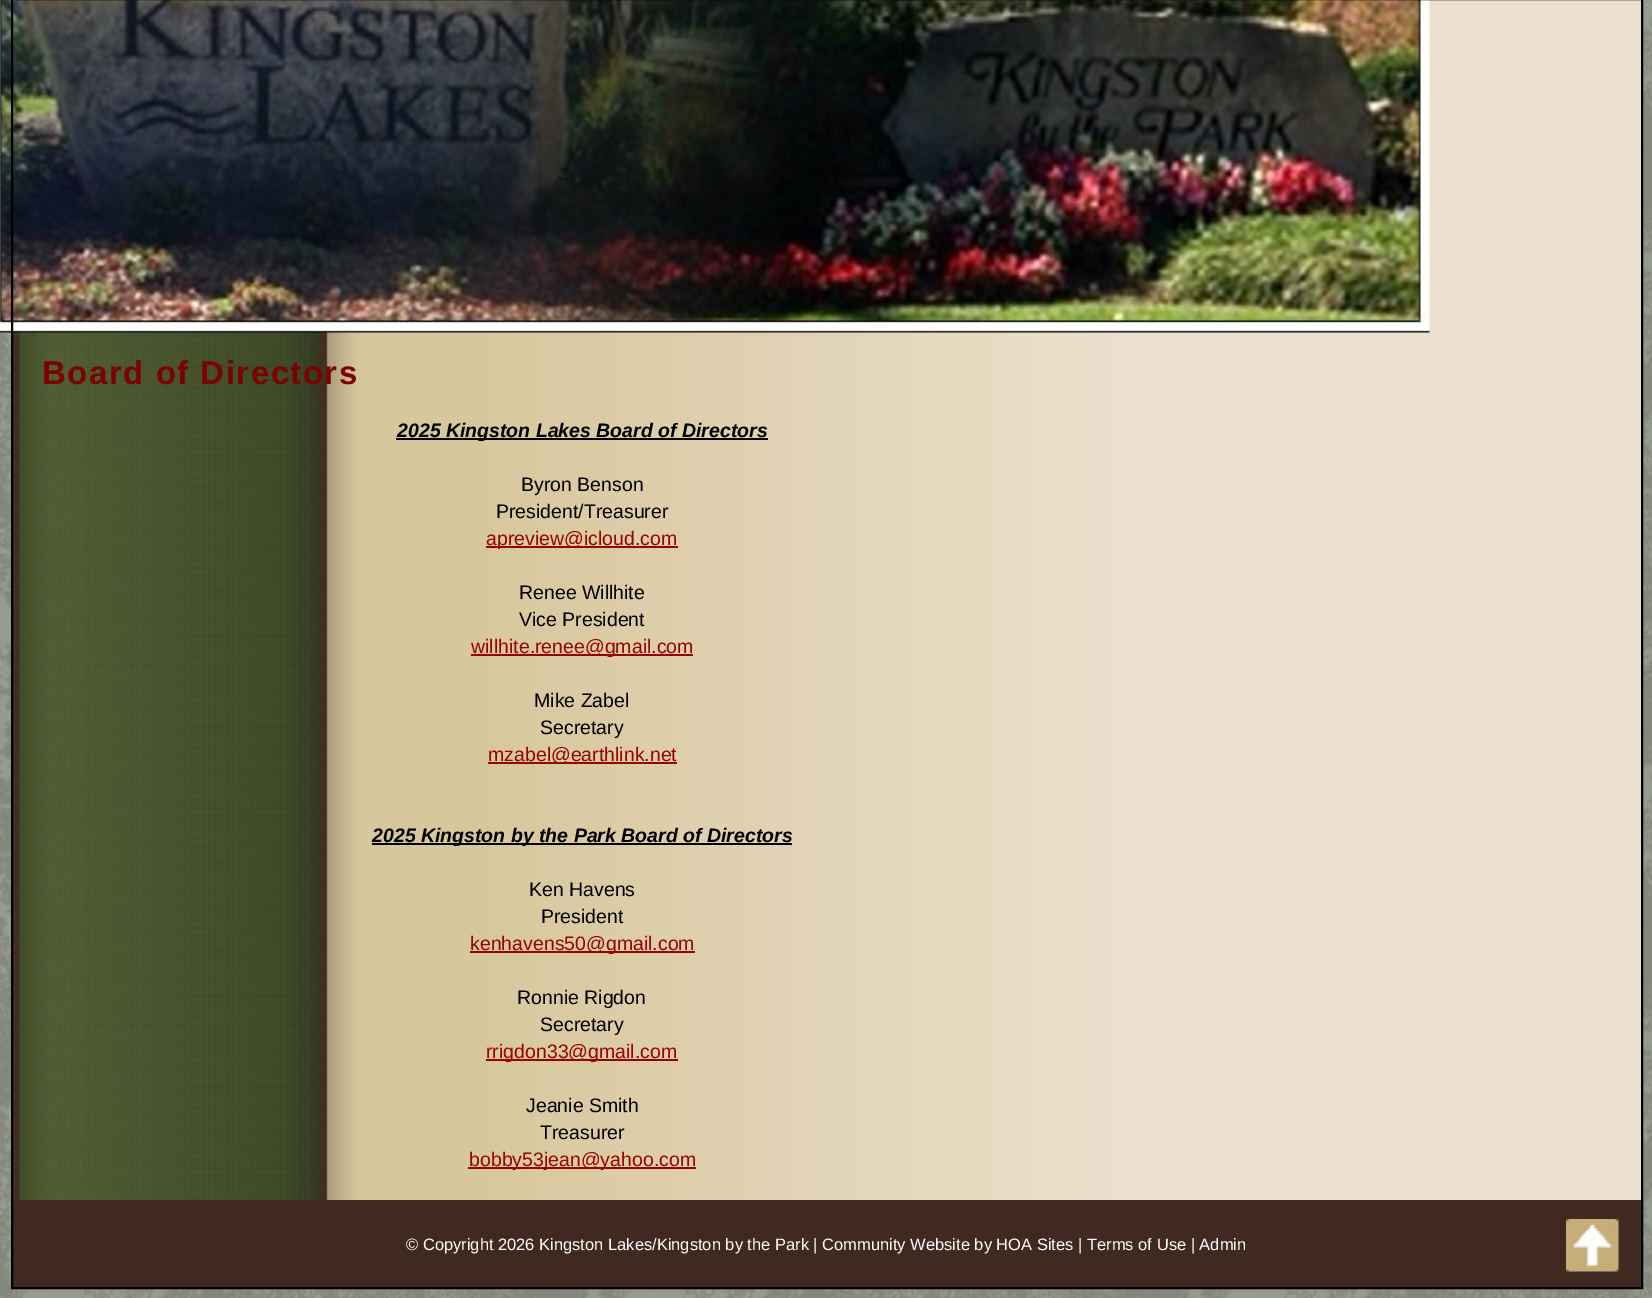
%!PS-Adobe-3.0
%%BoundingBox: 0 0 1652 1298
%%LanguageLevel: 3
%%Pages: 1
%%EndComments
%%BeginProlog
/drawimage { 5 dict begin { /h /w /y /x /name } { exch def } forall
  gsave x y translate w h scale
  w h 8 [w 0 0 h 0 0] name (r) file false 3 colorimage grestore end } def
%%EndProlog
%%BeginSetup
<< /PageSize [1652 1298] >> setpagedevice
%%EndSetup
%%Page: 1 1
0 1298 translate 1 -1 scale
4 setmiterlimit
1 setgray
0 0 1652 1298 rectfill
(images/1.raw) 0 0 1652 1298 drawimage
(images/2.raw) 13 0 1628 1200 drawimage
(images/3.raw) 0 0 1430 333 drawimage
0 setgray
396 438 372 2 rectfill
0.6 0 0 setrgbcolor
486 546 192 2 rectfill
471 654 222 2 rectfill
488 762 189 2 rectfill
0 setgray
372 843 420 2 rectfill
0.6 0 0 setrgbcolor
470 951 225 2 rectfill
486 1059 192 2 rectfill
468 1167 228 2 rectfill
0.251 0.161 0.129 setrgbcolor
13 1200 1628 87 rectfill
0 setgray
2 setlinewidth
12 -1 1630 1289 rectstroke
(images/4.raw) 1566 1219 53 53 drawimage
/LiberationSans-Bold [33 0 0 -33 0 0] selectfont
0.49 0 0 setrgbcolor
42 384 moveto 1.5 0 (Board of Directors) ashow
/LiberationSans-BoldItalic [19.5 0 0 -19.5 0 0] selectfont
0 setgray
397 437 moveto (2025 Kingston Lakes Board of Directors) show
/LiberationSans-Regular [19.5 0 0 -19.5 0 0] selectfont
521 491 moveto (Byron Benson) show
496 518 moveto (President/Treasurer) show
0.6 0 0 setrgbcolor
486 545 moveto (apreview@icloud.com) show
0 setgray
519 599 moveto (Renee Willhite) show
519 626 moveto (Vice President) show
0.6 0 0 setrgbcolor
471 653 moveto (willhite.renee@gmail.com) show
0 setgray
534 707 moveto (Mike Zabel) show
540 734 moveto (Secretary) show
0.6 0 0 setrgbcolor
488 761 moveto (mzabel@earthlink.net) show
/LiberationSans-BoldItalic [19.5 0 0 -19.5 0 0] selectfont
0 setgray
372 842 moveto (2025 Kingston by the Park Board of Directors) show
/LiberationSans-Regular [19.5 0 0 -19.5 0 0] selectfont
529 896 moveto (Ken Havens) show
541 923 moveto (President) show
0.6 0 0 setrgbcolor
470 950 moveto (kenhavens50@gmail.com) show
0 setgray
517 1004 moveto (Ronnie Rigdon) show
540 1031 moveto (Secretary) show
0.6 0 0 setrgbcolor
486 1058 moveto (rrigdon33@gmail.com) show
0 setgray
526 1112 moveto (Jeanie Smith) show
540 1139 moveto (Treasurer) show
0.6 0 0 setrgbcolor
469 1166 moveto (bobby53jean@yahoo.com) show
/LiberationSans-Regular [16.5 0 0 -16.5 0 0] selectfont
1 setgray
406 1250 moveto (© Copyright 2026 Kingston Lakes/Kingston by the Park | Community Website by HOA Sites | Terms of Use | Admin) show
showpage
%%EOF
